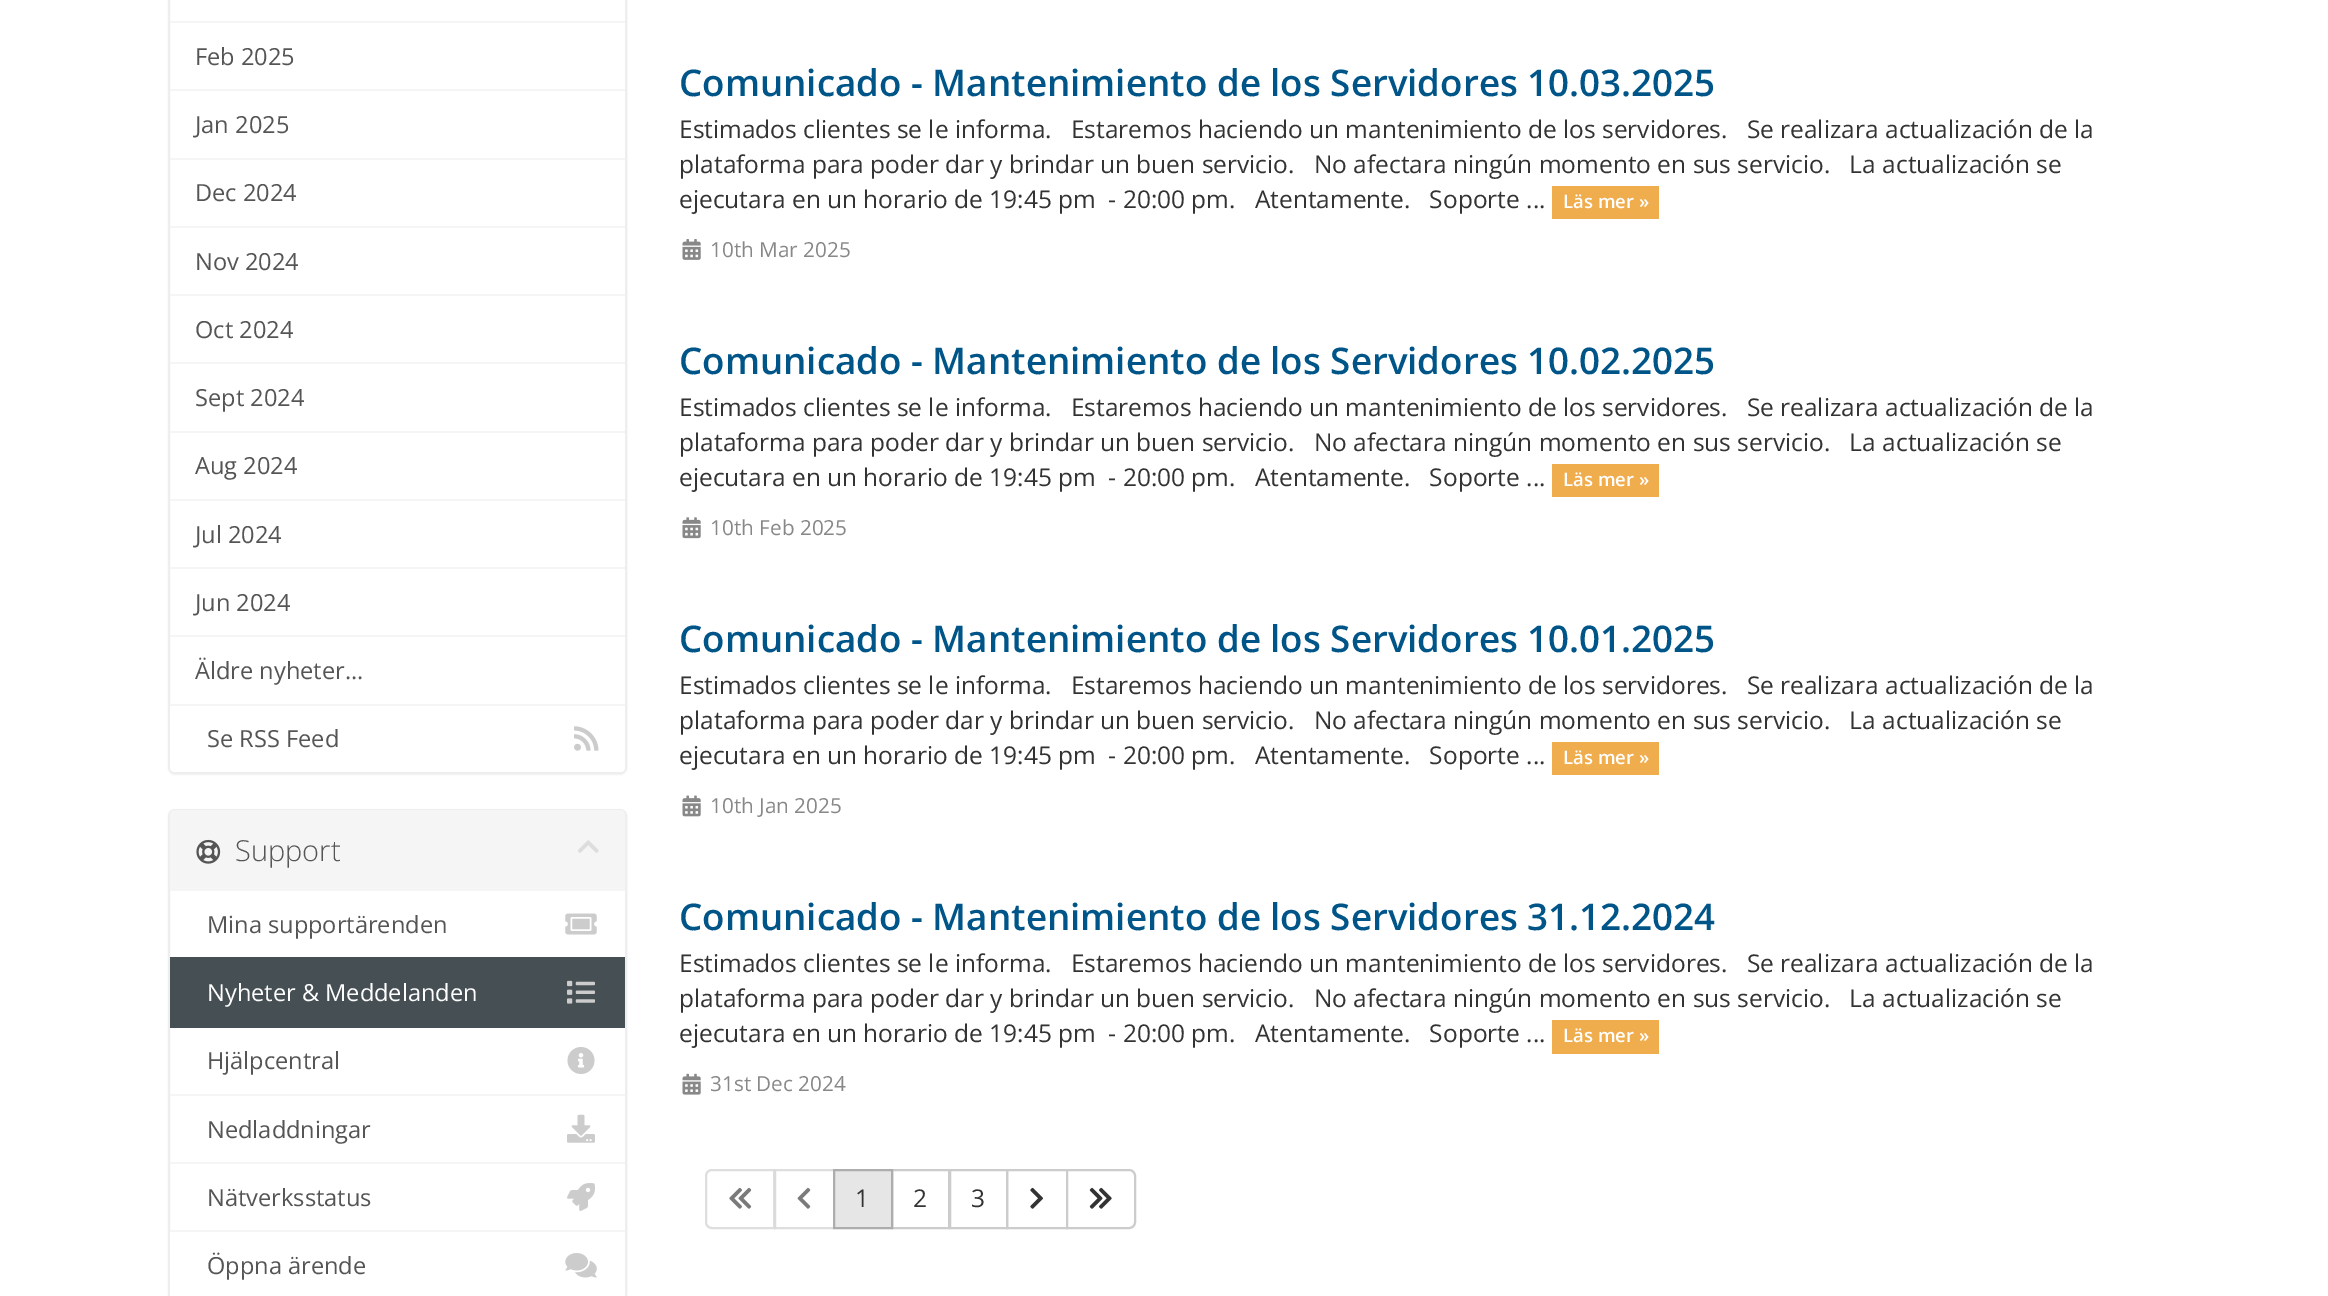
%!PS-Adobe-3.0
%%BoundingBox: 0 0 2328 1296
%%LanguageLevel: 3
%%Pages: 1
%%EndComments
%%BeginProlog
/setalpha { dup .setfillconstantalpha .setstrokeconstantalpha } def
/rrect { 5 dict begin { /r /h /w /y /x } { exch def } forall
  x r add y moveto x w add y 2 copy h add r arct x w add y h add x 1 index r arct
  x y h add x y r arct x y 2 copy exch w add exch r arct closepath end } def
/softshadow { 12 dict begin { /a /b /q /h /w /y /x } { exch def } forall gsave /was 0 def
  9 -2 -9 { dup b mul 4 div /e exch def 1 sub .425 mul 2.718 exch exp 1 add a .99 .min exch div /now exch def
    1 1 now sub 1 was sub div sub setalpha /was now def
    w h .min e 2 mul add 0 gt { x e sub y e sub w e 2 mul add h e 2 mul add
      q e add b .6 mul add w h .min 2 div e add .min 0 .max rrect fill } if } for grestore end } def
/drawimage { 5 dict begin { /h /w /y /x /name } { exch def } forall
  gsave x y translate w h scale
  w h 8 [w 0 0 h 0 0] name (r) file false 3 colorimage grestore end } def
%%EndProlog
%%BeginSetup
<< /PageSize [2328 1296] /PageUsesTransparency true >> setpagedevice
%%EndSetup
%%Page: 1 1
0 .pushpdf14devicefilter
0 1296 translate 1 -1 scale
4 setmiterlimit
1 setgray
0 0 2328 1296 rectfill
0 setgray
168 -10 459 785 7 1 0.05 softshadow
1 setgray
169 -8 457 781 6 rrect gsave fill grestore
0.933 setgray
2 setlinewidth
stroke
0.961 setgray
170 21 455 2 rectfill
170 89 455 2 rectfill
170 158 455 2 rectfill
170 226 455 2 rectfill
170 294 455 2 rectfill
170 362 455 2 rectfill
170 431 455 2 rectfill
170 499 455 2 rectfill
170 567 455 2 rectfill
170 635 455 2 rectfill
1 setgray
newpath 170 704 moveto 625 704 lineto 625 767 lineto 625 770 623 772 620 772 curveto 175 772 lineto 172 772 170 770 170 767 curveto closepath fill
0.961 setgray
170 704 455 2 rectfill
(images/1.raw) 574 726 25 25 drawimage
0.941 0.678 0.306 setrgbcolor
1552 186 107 33 rectfill
(images/2.raw) 682 239 19 21 drawimage
1552 464 107 33 rectfill
(images/3.raw) 682 517 19 22 drawimage
1552 742 107 33 rectfill
(images/4.raw) 682 795 19 22 drawimage
1552 1020 107 34 rectfill
(images/5.raw) 682 1073 19 22 drawimage
0.871 setgray
newpath 712 1170 moveto 774 1170 lineto 774 1228 lineto 712 1228 lineto 708.5 1228 706 1225.5 706 1222 curveto 706 1176 lineto 706 1172.5 708.5 1170 712 1170 curveto closepath stroke
(images/6.raw) 729 1187 23 22 drawimage
0.65 setalpha
1 setgray
774 1169 1 60 rectfill
0.8 setgray
775 1170 59 58 rectstroke
1 setalpha
(images/7.raw) 797 1187 14 22 drawimage
892 1170 57 58 rectstroke
0.902 setgray
newpath 834 1170 moveto 892 1170 lineto 892 1228 lineto 834 1228 lineto closepath gsave fill grestore
0.678 setgray
stroke
0.8 setgray
950 1170 57 58 rectstroke
1007 1170 60 58 rectstroke
(images/8.raw) 1030 1187 13 22 drawimage
1 setgray
newpath 1067 1170 moveto 1129 1170 lineto 1132.5 1170 1135 1172.5 1135 1176 curveto 1135 1222 lineto 1135 1225.5 1132.5 1228 1129 1228 curveto 1067 1228 lineto closepath gsave fill grestore
0.8 setgray
stroke
(images/9.raw) 1089 1187 23 22 drawimage
0 setgray
168 810 459 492 7 1 0.05 softshadow
1 setgray
169 810 457 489 6 rrect gsave fill grestore
0.933 setgray
stroke
0.961 setgray
newpath 175 810 moveto 620 810 lineto 623 810 625 812 625 815 curveto 625 891 lineto 170 891 lineto 170 815 lineto 170 812 172 810 175 810 curveto closepath fill
(images/10.raw) 196 839 25 25 drawimage
(images/11.raw) 578 840 21 13 drawimage
(images/12.raw) 565 913 32 22 drawimage
0.275 0.314 0.329 setrgbcolor
170 957 455 71 rectfill
(images/13.raw) 567 980 28 24 drawimage
0.961 setgray
170 1094 455 2 rectfill
(images/14.raw) 567 1047 28 27 drawimage
170 1162 455 2 rectfill
(images/15.raw) 567 1114 28 29 drawimage
(images/16.raw) 567 1183 28 28 drawimage
1 setgray
newpath 170 1230 moveto 625 1230 lineto 625 1294 lineto 625 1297 623 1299 620 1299 curveto 175 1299 lineto 172 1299 170 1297 170 1294 curveto closepath fill
0.961 setgray
170 1230 455 2 rectfill
(images/17.raw) 565 1253 32 25 drawimage
/OpenSans-Regular [23.6 0 0 -23.6 0 0] selectfont
0.333 setgray
195 65 moveto (Feb 2025) show
195 133 moveto (Jan 2025) show
195 201 moveto (Dec 2024) show
195 270 moveto (Nov 2024) show
195 338 moveto (Oct 2024) show
195 406 moveto (Sept 2024) show
195 474 moveto (Aug 2024) show
195 543 moveto (Jul 2024) show
195 611 moveto (Jun 2024) show
195 679 moveto (Äldre nyheter...) show
207 747 moveto (Se RSS Feed) show
/OpenSans-SemiBold [36.75 0 0 -36.75 0 0] selectfont
0 0.333 0.533 setrgbcolor
679 96 moveto (Comunicado - Mantenimiento de los Servidores 10.03.2025) show
/OpenSans-Regular [24.5 0 0 -24.5 0 0] selectfont
0.2 setgray
679 138 moveto (Estimados clientes se le informa.   Estaremos haciendo un mantenimiento de los servidores.   Se realizara actualización de la) show
679 173 moveto (plataforma para poder dar y brindar un buen servicio.   No afectara ningún momento en sus servicio.   La actualización se) show
679 208 moveto (ejecutara en un horario de 19:45 pm  - 20:00 pm.   Atentamente.   Soporte ...) show
/OpenSans-SemiBold [18.5 0 0 -18.5 0 0] selectfont
1 setgray
1563 208 moveto (Läs mer ») show
/OpenSans-Regular [20.75 0 0 -20.75 0 0] selectfont
0.533 setgray
710 257 moveto (10th Mar 2025) show
/OpenSans-SemiBold [36.75 0 0 -36.75 0 0] selectfont
0 0.333 0.533 setrgbcolor
679 374 moveto (Comunicado - Mantenimiento de los Servidores 10.02.2025) show
/OpenSans-Regular [24.5 0 0 -24.5 0 0] selectfont
0.2 setgray
679 416 moveto (Estimados clientes se le informa.   Estaremos haciendo un mantenimiento de los servidores.   Se realizara actualización de la) show
679 451 moveto (plataforma para poder dar y brindar un buen servicio.   No afectara ningún momento en sus servicio.   La actualización se) show
679 486 moveto (ejecutara en un horario de 19:45 pm  - 20:00 pm.   Atentamente.   Soporte ...) show
/OpenSans-SemiBold [18.5 0 0 -18.5 0 0] selectfont
1 setgray
1563 486 moveto (Läs mer ») show
/OpenSans-Regular [20.75 0 0 -20.75 0 0] selectfont
0.533 setgray
710 535 moveto (10th Feb 2025) show
/OpenSans-SemiBold [36.75 0 0 -36.75 0 0] selectfont
0 0.333 0.533 setrgbcolor
679 652 moveto (Comunicado - Mantenimiento de los Servidores 10.01.2025) show
/OpenSans-Regular [24.5 0 0 -24.5 0 0] selectfont
0.2 setgray
679 694 moveto (Estimados clientes se le informa.   Estaremos haciendo un mantenimiento de los servidores.   Se realizara actualización de la) show
679 729 moveto (plataforma para poder dar y brindar un buen servicio.   No afectara ningún momento en sus servicio.   La actualización se) show
679 764 moveto (ejecutara en un horario de 19:45 pm  - 20:00 pm.   Atentamente.   Soporte ...) show
/OpenSans-SemiBold [18.5 0 0 -18.5 0 0] selectfont
1 setgray
1563 764 moveto (Läs mer ») show
/OpenSans-Regular [20.75 0 0 -20.75 0 0] selectfont
0.533 setgray
710 813 moveto (10th Jan 2025) show
/OpenSans-SemiBold [36.75 0 0 -36.75 0 0] selectfont
0 0.333 0.533 setrgbcolor
679 930 moveto (Comunicado - Mantenimiento de los Servidores 31.12.2024) show
/OpenSans-Regular [24.5 0 0 -24.5 0 0] selectfont
0.2 setgray
679 972 moveto (Estimados clientes se le informa.   Estaremos haciendo un mantenimiento de los servidores.   Se realizara actualización de la) show
679 1007 moveto (plataforma para poder dar y brindar un buen servicio.   No afectara ningún momento en sus servicio.   La actualización se) show
679 1042 moveto (ejecutara en un horario de 19:45 pm  - 20:00 pm.   Atentamente.   Soporte ...) show
/OpenSans-SemiBold [18.5 0 0 -18.5 0 0] selectfont
1 setgray
1563 1042 moveto (Läs mer ») show
/OpenSans-Regular [20.75 0 0 -20.75 0 0] selectfont
0.533 setgray
710 1091 moveto (31st Dec 2024) show
/OpenSans-Regular [24.5 0 0 -24.5 0 0] selectfont
0.2 setgray
855 1207 moveto (1) show
913 1207 moveto (2) show
971 1207 moveto (3) show
/OpenSans-Light [29 0 0 -29 0 0] selectfont
0.333 setgray
235 861 moveto (Support) show
/OpenSans-Regular [23.6 0 0 -23.6 0 0] selectfont
207 933 moveto (Mina supportärenden) show
1 setgray
207 1001 moveto (Nyheter & Meddelanden) show
0.333 setgray
207 1069 moveto (Hjälpcentral) show
207 1138 moveto (Nedladdningar) show
207 1206 moveto (Nätverksstatus) show
207 1274 moveto (Öppna ärende) show
.poppdf14devicefilter showpage
%%EOF
